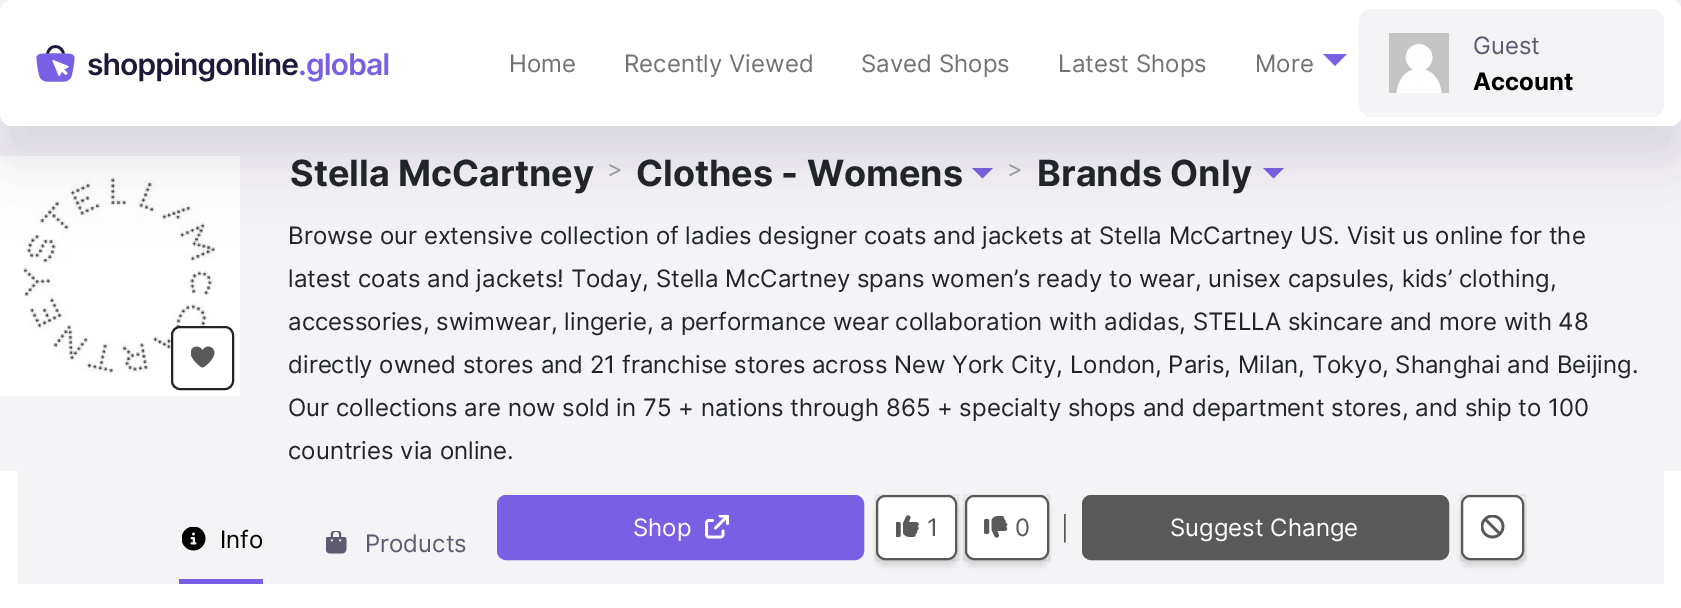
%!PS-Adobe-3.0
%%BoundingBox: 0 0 1681 608
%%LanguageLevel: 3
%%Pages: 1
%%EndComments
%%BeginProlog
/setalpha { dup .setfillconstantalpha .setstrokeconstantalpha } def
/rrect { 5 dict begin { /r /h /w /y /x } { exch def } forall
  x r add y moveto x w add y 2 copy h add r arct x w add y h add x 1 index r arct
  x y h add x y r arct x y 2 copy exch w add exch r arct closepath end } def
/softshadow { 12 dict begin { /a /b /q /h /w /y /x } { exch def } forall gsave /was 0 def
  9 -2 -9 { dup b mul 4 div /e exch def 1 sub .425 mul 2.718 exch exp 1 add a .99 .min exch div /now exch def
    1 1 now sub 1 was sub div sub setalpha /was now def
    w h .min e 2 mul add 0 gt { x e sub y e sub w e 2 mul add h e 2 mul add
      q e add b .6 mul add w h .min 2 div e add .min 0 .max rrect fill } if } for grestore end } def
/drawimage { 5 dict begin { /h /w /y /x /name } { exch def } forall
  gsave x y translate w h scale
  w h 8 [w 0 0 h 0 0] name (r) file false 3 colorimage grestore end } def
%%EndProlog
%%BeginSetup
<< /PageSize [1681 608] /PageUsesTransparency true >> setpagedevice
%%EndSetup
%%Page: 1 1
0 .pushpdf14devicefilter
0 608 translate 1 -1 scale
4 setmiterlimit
1 setgray
0 0 1681 608 rectfill
0.957 0.953 0.965 setrgbcolor
0 0 1681 471 rectfill
1 setgray
0 156 240 240 rectfill
(images/3.raw) 23 174 193 199 drawimage
0.475 0.373 0.89 setrgbcolor
newpath 972 168 moveto 993 168 lineto 982.5 178.5 lineto closepath fill
newpath 1263 168 moveto 1284 168 lineto 1273.5 178.5 lineto closepath fill
0.118 0.098 0.22 setrgbcolor
0 36 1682 126 12 36 0.08 softshadow
0 30 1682 126 12 15 0.06 softshadow
1 setgray
0 0 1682 126 12 rrect fill
(images/1.raw) 36 45 353 37 drawimage
0.475 0.373 0.89 setrgbcolor
newpath 1323 54 moveto 1347 54 lineto 1335 66 lineto closepath fill
0.957 0.953 0.965 setrgbcolor
1359 9 305 108 12 rrect fill
(images/2.raw) 1389 33 60 60 drawimage
1 setgray
172 327 61 62 8 rrect gsave fill grestore
0.129 0.145 0.161 setrgbcolor
2 setlinewidth
stroke
(images/4.raw) 191 346 24 22 drawimage
0.957 0.953 0.965 setrgbcolor
18 471 1646 113 rectfill
0.475 0.373 0.89 setrgbcolor
179 579 84 5 rectfill
(images/5.raw) 182 527 24 24 drawimage
(images/6.raw) 326 531 21 23 drawimage
498 496 365 63 8 rrect gsave fill grestore
stroke
(images/7.raw) 705 515 24 24 drawimage
0 setgray
876 501 81 65 9 3 0.12 softshadow
0.06 setalpha
876 495 82 65 rectstroke
1 setalpha
1 setgray
877 496 79 63 8 rrect gsave fill grestore
0.349 setgray
stroke
(images/8.raw) 896 515 23 22 drawimage
0 setgray
965 501 84 65 9 3 0.12 softshadow
0.06 setalpha
964 495 85 65 rectstroke
1 setalpha
1 setgray
966 496 82 63 8 rrect gsave fill grestore
0.349 setgray
stroke
(images/9.raw) 984 516 24 22 drawimage
1083 496 365 63 8 rrect gsave fill grestore
stroke
0 setgray
1461 501 63 65 9 3 0.12 softshadow
0.06 setalpha
1461 495 64 65 rectstroke
1 setalpha
1 setgray
1462 496 61 63 8 rrect gsave fill grestore
0.349 setgray
stroke
(images/10.raw) 1481 515 24 24 drawimage
/Inter-Regular [24 0 0 -24 0 0] selectfont
0.451 setgray
509 72 moveto (Home) show
624 72 moveto (Recently Viewed) show
861 72 moveto (Saved Shops) show
1058 72 moveto (Latest Shops) show
1255 72 moveto (More) show
0.369 0.357 0.443 setrgbcolor
1473 54 moveto (Guest) show
/Inter-Bold [24 0 0 -24 0 0] selectfont
0 setgray
1473 90 moveto (Account) show
/Inter-Bold [36 0 0 -36 0 0] selectfont
0.129 0.145 0.161 setrgbcolor
290 186 moveto (Stella McCartney) show
/Inter-Regular [24 0 0 -24 0 0] selectfont
0.6 setgray
607 177 moveto (>) show
/Inter-Bold [36 0 0 -36 0 0] selectfont
0.129 0.145 0.161 setrgbcolor
636 186 moveto (Clothes - Womens) show
/Inter-Regular [24 0 0 -24 0 0] selectfont
0.6 setgray
1007 177 moveto (>) show
/Inter-Bold [36 0 0 -36 0 0] selectfont
0.129 0.145 0.161 setrgbcolor
1037 186 moveto (Brands Only) show
/Inter-Regular [24 0 0 -24 0 0] selectfont
288 244 moveto (Browse our extensive collection of ladies designer coats and jackets at Stella McCartney US. Visit us online for the) show
288 287 moveto (latest coats and jackets! Today, Stella McCartney spans women’s ready to wear, unisex capsules, kids’ clothing,) show
288 330 moveto (accessories, swimwear, lingerie, a performance wear collaboration with adidas, STELLA skincare and more with 48) show
288 373 moveto (directly owned stores and 21 franchise stores across New York City, London, Paris, Milan, Tokyo, Shanghai and Beijing.) show
288 416 moveto (Our collections are now sold in 75 + nations through 865 + specialty shops and department stores, and ship to 100) show
288 459 moveto (countries via online.) show
0 setgray
220 548 moveto (Info) show
0.369 0.357 0.443 setrgbcolor
365 552 moveto (Products) show
1 setgray
633 536 moveto (Shop) show
0.349 setgray
927 536 moveto (1) show
1015 536 moveto (0) show
1061 537 moveto (|) show
1 setgray
1170 536 moveto (Suggest Change) show
.poppdf14devicefilter showpage
%%EOF
